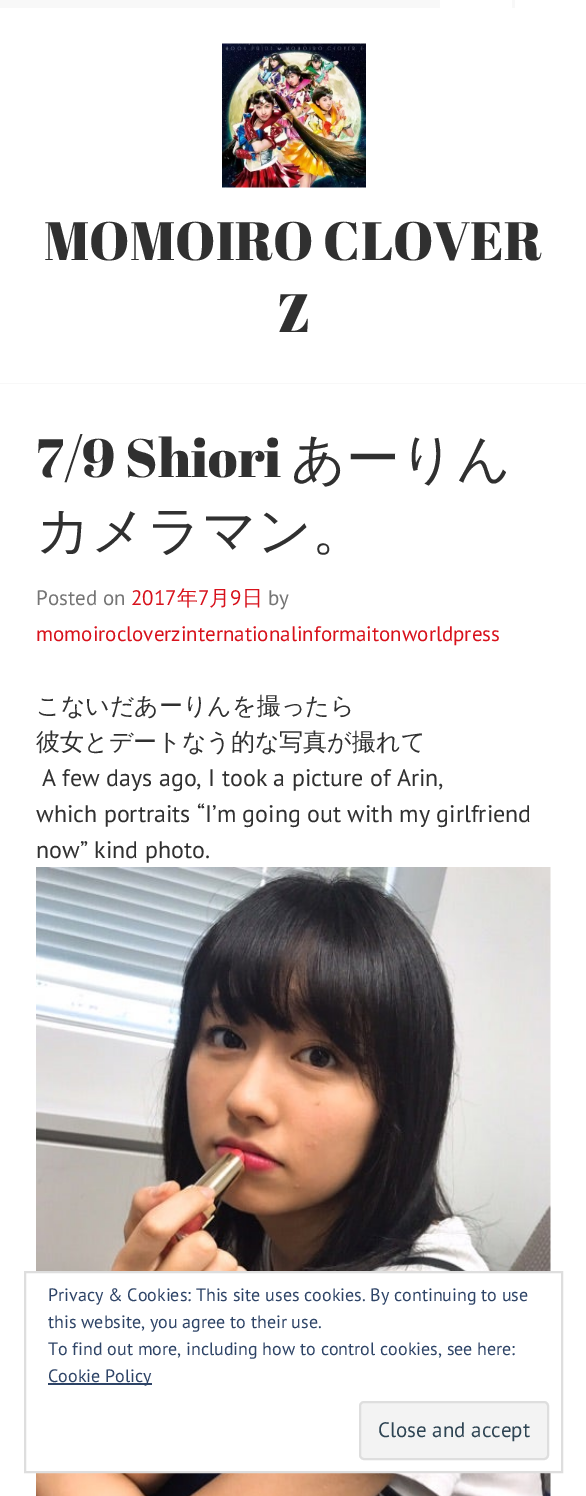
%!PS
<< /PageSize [586 1496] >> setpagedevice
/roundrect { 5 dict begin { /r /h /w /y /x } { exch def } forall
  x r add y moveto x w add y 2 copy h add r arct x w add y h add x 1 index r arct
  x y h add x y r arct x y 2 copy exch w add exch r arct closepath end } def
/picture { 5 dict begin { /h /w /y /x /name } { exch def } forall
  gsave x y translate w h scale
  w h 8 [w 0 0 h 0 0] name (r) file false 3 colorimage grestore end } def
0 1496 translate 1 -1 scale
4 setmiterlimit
1 setgray
0 0 586 1496 rectfill
0.973 setgray
0 383 586 1 rectfill
0 0 515 8 rectfill
1 setgray
440 0 72 8 rectfill
(img1.rgb) 222 43 144 145 picture
/AbrilFatface-Regular [54 0 0 -54 0 0] selectfont
0.188 setgray
44 260 moveto (MOMOIRO CLOVER) show
277 332 moveto (Z) show
36 477 moveto (7/9 Shiori) show
/WenQuanYiZenHei-Medium [54 0 0 -54 0 0] selectfont
291 477 moveto (あーりん) show
36 549 moveto (カメラマン。) show
/PTSans-Regular [21 0 0 -21 0 0] selectfont
0.459 setgray
36 605 moveto (Posted on) show
0.847 0.067 0.106 setrgbcolor
131 605 moveto (2017) show
/WenQuanYiZenHei-Medium [21 0 0 -21 0 0] selectfont
177 605 moveto (年) show
/PTSans-Regular [21 0 0 -21 0 0] selectfont
198 605 moveto (7) show
/WenQuanYiZenHei-Medium [21 0 0 -21 0 0] selectfont
209 605 moveto (月) show
/PTSans-Regular [21 0 0 -21 0 0] selectfont
230 605 moveto (9) show
/WenQuanYiZenHei-Medium [21 0 0 -21 0 0] selectfont
242 605 moveto (日) show
/PTSans-Regular [21 0 0 -21 0 0] selectfont
0.459 setgray
268 605 moveto (by) show
0.847 0.067 0.106 setrgbcolor
36 641 moveto (momoirocloverzinternationalinformaitonworldpress) show
/WenQuanYiZenHei-Medium [24 0 0 -24 0 0] selectfont
0.188 setgray
36 714 moveto (こないだあーりんを撮ったら) show
36 750 moveto (彼女とデートなう的な写真が撮れて) show
/PTSans-Regular [24 0 0 -24 0 0] selectfont
42 786 moveto (A few days ago, I took a picture of Arin,) show
36 822 moveto (which portraits “I’m going out with my girlfriend) show
36 858 moveto (now” kind photo.) show
(img2.rgb) 36 867 515 629 picture
1 setgray
36 1273 515 198 rectfill
0.871 setgray
2 setlinewidth
25 1272 537 200 rectstroke
/PTSans-Regular [18 0 0 -18 0 0] selectfont
0.18 0.267 0.404 setrgbcolor
48 1301 moveto (Privacy & Cookies: This site uses cookies. By continuing to use) show
48 1328 moveto (this website, you agree to their use.) show
48 1355 moveto (To find out more, including how to control cookies, see here:) show
48 1383 104 2 rectfill
48 1382 moveto (Cookie Policy) show
0.953 setgray
360 1402 188 57 4 roundrect gsave fill grestore
0.871 setgray
stroke
/PTSans-Regular [21 0 0 -21 0 0] selectfont
0.18 0.267 0.325 setrgbcolor
378 1437 moveto (Close and accept) show
showpage
